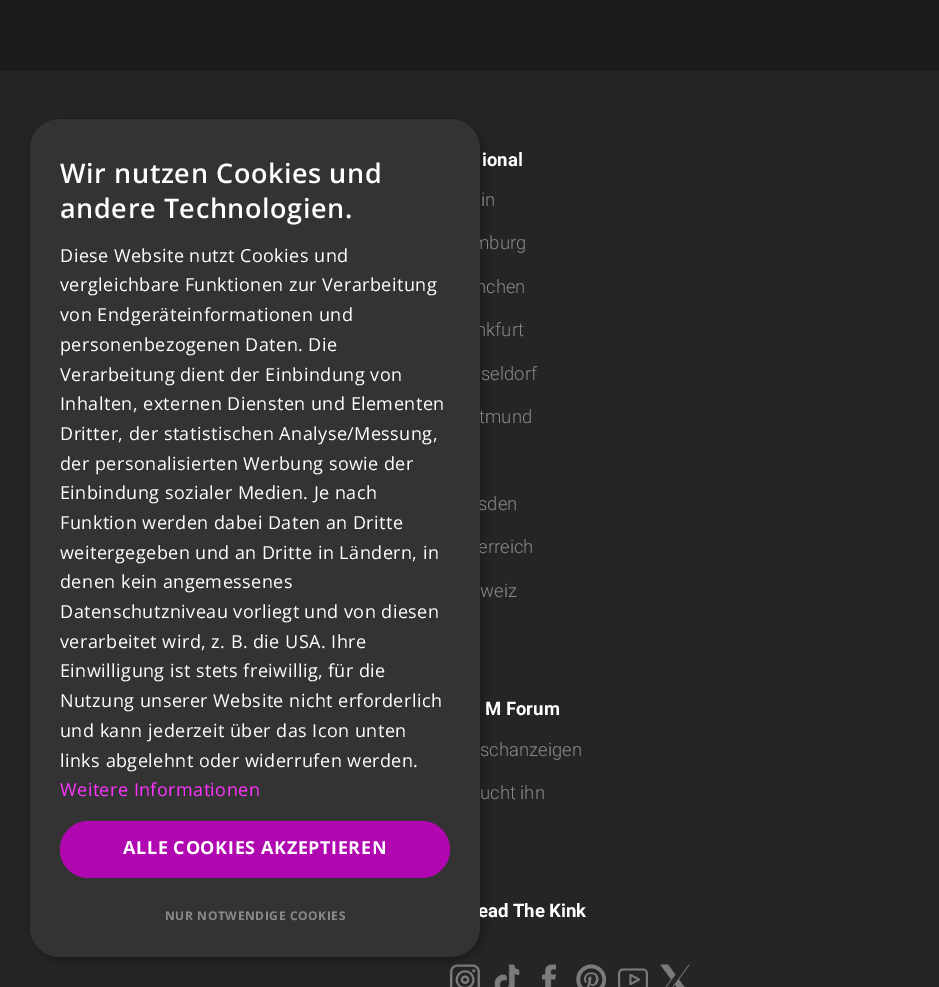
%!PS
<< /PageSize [939 987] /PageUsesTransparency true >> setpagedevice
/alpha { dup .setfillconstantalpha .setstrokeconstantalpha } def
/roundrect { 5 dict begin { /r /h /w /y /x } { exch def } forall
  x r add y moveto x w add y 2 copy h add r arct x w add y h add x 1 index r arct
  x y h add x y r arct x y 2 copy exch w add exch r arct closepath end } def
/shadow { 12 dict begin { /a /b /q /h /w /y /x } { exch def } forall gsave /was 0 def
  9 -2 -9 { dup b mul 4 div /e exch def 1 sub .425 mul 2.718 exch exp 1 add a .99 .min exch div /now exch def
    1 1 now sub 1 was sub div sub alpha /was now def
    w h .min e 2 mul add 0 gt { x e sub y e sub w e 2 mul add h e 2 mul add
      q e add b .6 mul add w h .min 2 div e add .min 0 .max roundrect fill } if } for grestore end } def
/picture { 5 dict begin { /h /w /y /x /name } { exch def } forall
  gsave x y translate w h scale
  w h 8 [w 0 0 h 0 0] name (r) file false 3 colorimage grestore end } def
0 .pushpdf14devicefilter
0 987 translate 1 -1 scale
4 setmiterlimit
0.11 setgray
0 0 939 987 rectfill
0.145 setgray
0 71 939 916 rectfill
(img1.rgb) 450 964 30 23 picture
(img2.rgb) 494 964 26 23 picture
0 setgray
32 122 450 838 30 6 0.35 shadow
/Roboto-Light [18.5 0 0 -18.5 0 0] selectfont
0.537 setgray
473 249 moveto (mburg) show
476 293 moveto (nchen) show
476 336 moveto (nkfurt) show
479 423 moveto (tmund) show
478 510 moveto (sden) show
478 553 moveto (erreich) show
/Roboto-Bold [18.5 0 0 -18.5 0 0] selectfont
1 setgray
478 917 moveto (ead The Kink) show
0.2 setgray
30 119 450 838 30 roundrect fill
/OpenSans-SemiBold [27 0 0 -27 0 0] selectfont
1 setgray
60 183 moveto 0.6 0 (Wir nutzen Cookies und) ashow
60 218 moveto 0.6 0 (andere Technologien.) ashow
/OpenSans-Regular [18 0 0 -18 0 0] selectfont
60 262 moveto 0.45 0 (Diese Website nutzt Cookies und) ashow
60 291 moveto 0.45 0 (vergleichbare Funktionen zur Verarbeitung) ashow
60 321 moveto 0.45 0 (von Endgeräteinformationen und) ashow
60 351 moveto 0.45 0 (personenbezogenen Daten. Die) ashow
60 381 moveto 0.45 0 (Verarbeitung dient der Einbindung von) ashow
60 410 moveto 0.45 0 (Inhalten, externen Diensten und Elementen) ashow
60 440 moveto 0.45 0 (Dritter, der statistischen Analyse/Messung,) ashow
60 470 moveto 0.45 0 (der personalisierten Werbung sowie der) ashow
60 499 moveto 0.45 0 (Einbindung sozialer Medien. Je nach) ashow
60 529 moveto 0.45 0 (Funktion werden dabei Daten an Dritte) ashow
60 559 moveto 0.45 0 (weitergegeben und an Dritte in Ländern, in) ashow
60 588 moveto 0.45 0 (denen kein angemessenes) ashow
60 618 moveto 0.45 0 (Datenschutzniveau vorliegt und von diesen) ashow
60 648 moveto 0.45 0 (verarbeitet wird, z. B. die USA. Ihre) ashow
60 677 moveto 0.45 0 (Einwilligung ist stets freiwillig, für die) ashow
60 707 moveto 0.45 0 (Nutzung unserer Website nicht erforderlich) ashow
60 737 moveto 0.45 0 (und kann jederzeit über das Icon unten) ashow
60 767 moveto 0.45 0 (links abgelehnt oder widerrufen werden.) ashow
1 0.2 1 setrgbcolor
60 796 moveto 0.45 0 (Weitere Informationen) ashow
0.694 0.027 0.694 setrgbcolor
60 821 390 57 28.5 roundrect fill
/OpenSans-Bold [18 0 0 -18 0 0] selectfont
1 setgray
123 854 moveto 0.6 0 (ALLE COOKIES AKZEPTIEREN) ashow
/OpenSans-Bold [12 0 0 -12 0 0] selectfont
0.537 setgray
165 920 moveto 0.6 0 (NUR NOTWENDIGE COOKIES) ashow
/Roboto-Bold [18.5 0 0 -18.5 0 0] selectfont
1 setgray
482 166 moveto (ional) show
/Roboto-Light [18.5 0 0 -18.5 0 0] selectfont
0.537 setgray
481 206 moveto (in) show
481 380 moveto (seldorf) show
480 597 moveto (weiz) show
/Roboto-Bold [18.5 0 0 -18.5 0 0] selectfont
1 setgray
485 715 moveto (M Forum) show
/Roboto-Light [18.5 0 0 -18.5 0 0] selectfont
0.537 setgray
480 756 moveto (schanzeigen) show
480 799 moveto (ucht ihn) show
(img3.rgb) 542 964 14 23 picture
(img4.rgb) 576 964 30 23 picture
(img5.rgb) 618 968 30 19 picture
(img6.rgb) 660 964 30 23 picture
.poppdf14devicefilter showpage
